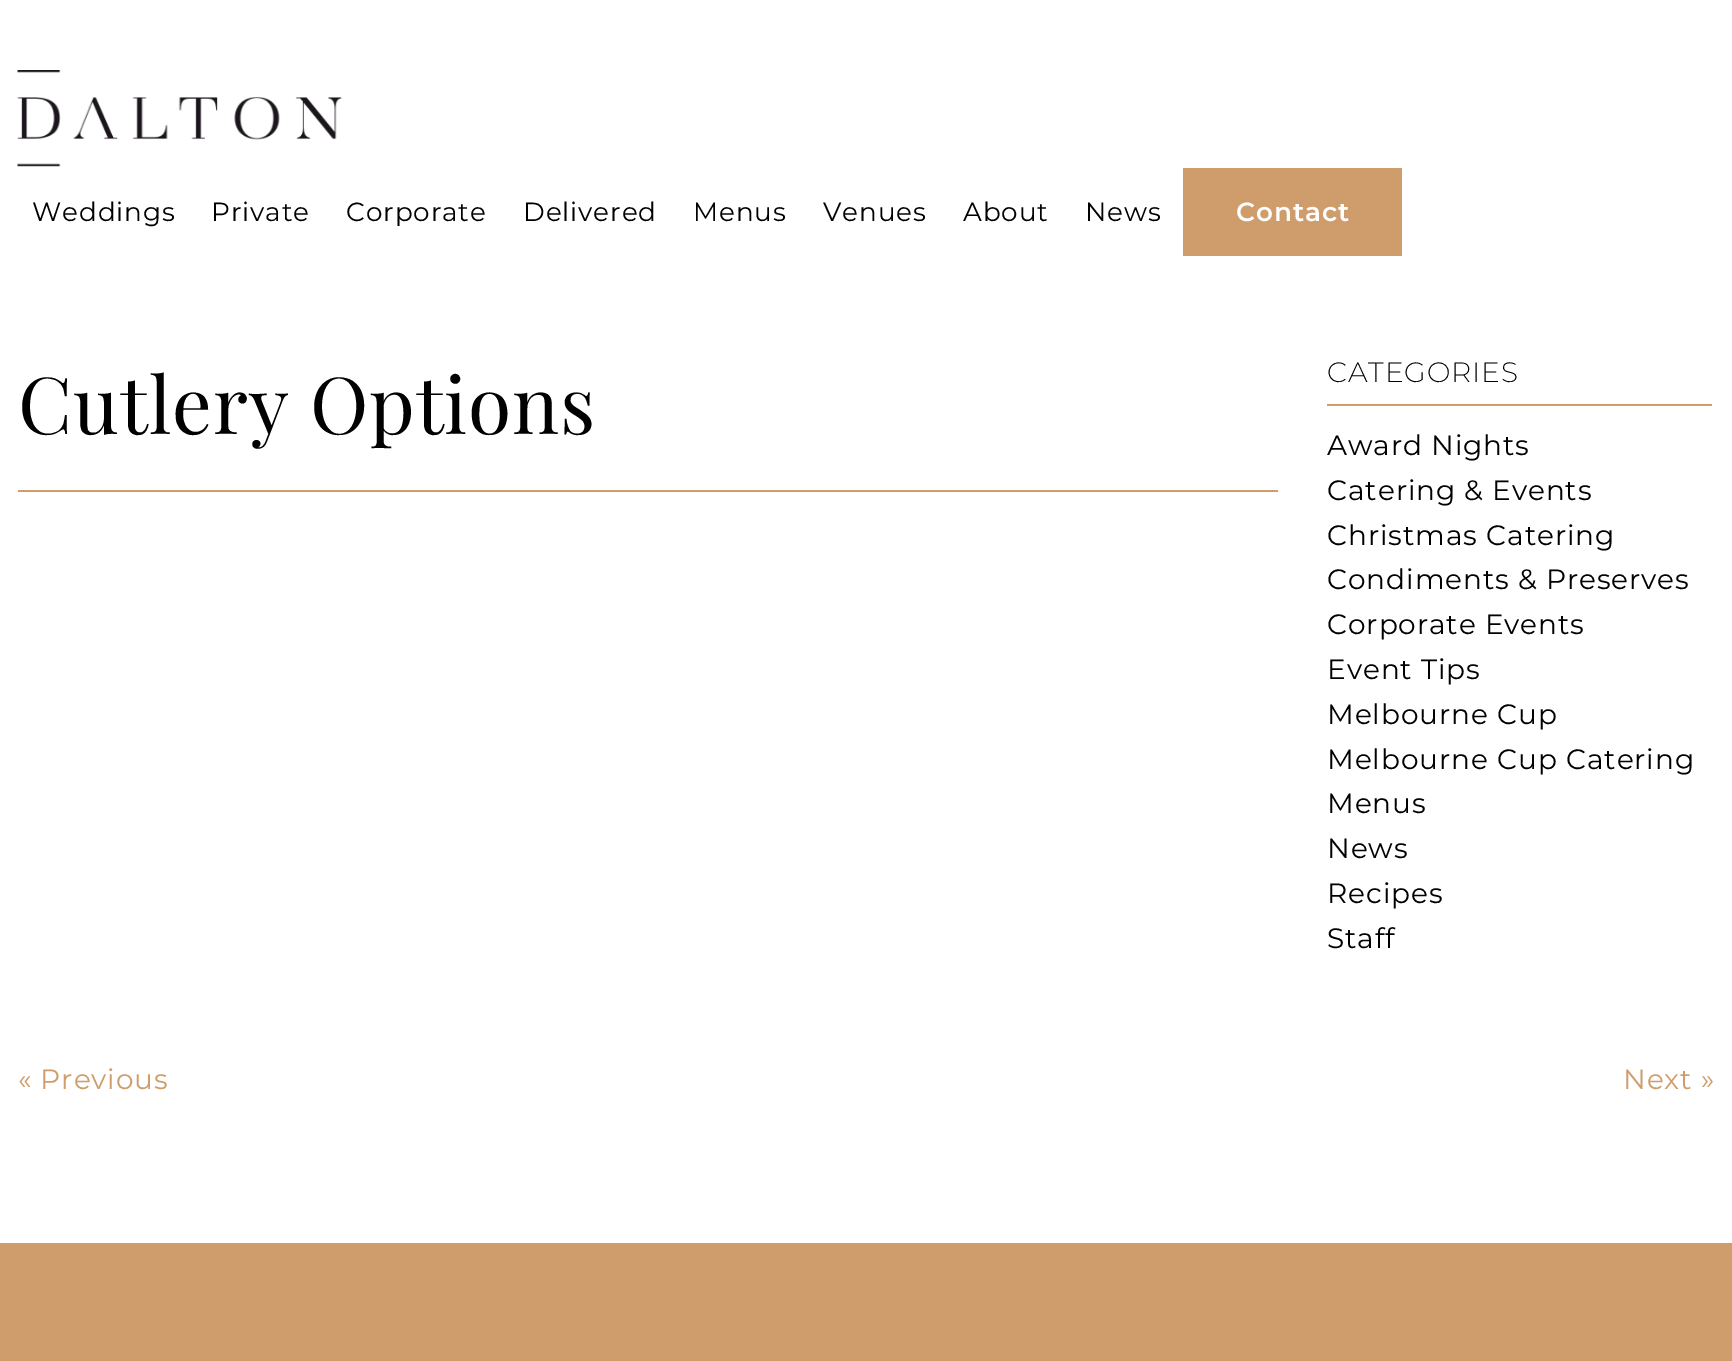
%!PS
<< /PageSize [1732 1361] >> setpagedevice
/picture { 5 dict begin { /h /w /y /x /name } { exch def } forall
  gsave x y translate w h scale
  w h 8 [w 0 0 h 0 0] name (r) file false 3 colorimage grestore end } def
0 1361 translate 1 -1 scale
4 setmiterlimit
1 setgray
0 0 1732 1361 rectfill
(img1.rgb) 17 70 325 97 picture
/Montserrat-Regular [26.25 0 0 -26.25 0 0] selectfont
0 setgray
32 221 moveto 0.9 0 (Weddings) ashow
211 221 moveto 0.9 0 (Private) ashow
346 221 moveto 0.9 0 (Corporate) ashow
523 221 moveto 0.9 0 (Delivered) ashow
693 221 moveto 0.9 0 (Menus) ashow
823 221 moveto 0.9 0 (Venues) ashow
963 221 moveto 0.9 0 (About) ashow
1085 221 moveto 0.9 0 (News) ashow
0.808 0.616 0.42 setrgbcolor
1183 168 219 88 rectfill
/Montserrat-SemiBold [26.25 0 0 -26.25 0 0] selectfont
1 setgray
1236 221 moveto 0.9 0 (Contact) ashow
0.808 0.616 0.42 setrgbcolor
18 490 1260 2 rectfill
/PlayfairDisplay-Regular [78.75 0 0 -78.75 0 0] selectfont
0 setgray
18 434 moveto 0.9 0 (Cutlery Options) ashow
0.808 0.616 0.42 setrgbcolor
1327 404 385 2 rectfill
/Montserrat-ExtraLight [28 0 0 -28 0 0] selectfont
0 setgray
1327 382 moveto 0.9 0 (CATEGORIES) ashow
/Montserrat-Regular [28 0 0 -28 0 0] selectfont
1327 455 moveto 0.9 0 (Award Nights) ashow
1327 500 moveto 0.9 0 (Catering & Events) ashow
1327 545 moveto 0.9 0 (Christmas Catering) ashow
1327 589 moveto 0.9 0 (Condiments & Preserves) ashow
1327 634 moveto 0.9 0 (Corporate Events) ashow
1327 679 moveto 0.9 0 (Event Tips) ashow
1327 724 moveto 0.9 0 (Melbourne Cup) ashow
1327 769 moveto 0.9 0 (Melbourne Cup Catering) ashow
1327 813 moveto 0.9 0 (Menus) ashow
1327 858 moveto 0.9 0 (News) ashow
1327 903 moveto 0.9 0 (Recipes) ashow
1327 948 moveto 0.9 0 (Staff) ashow
0.808 0.616 0.42 setrgbcolor
18 1089 moveto 0.9 0 (« Previous) ashow
1623 1089 moveto 0.9 0 (Next ») ashow
0 1243 1732 118 rectfill
showpage
